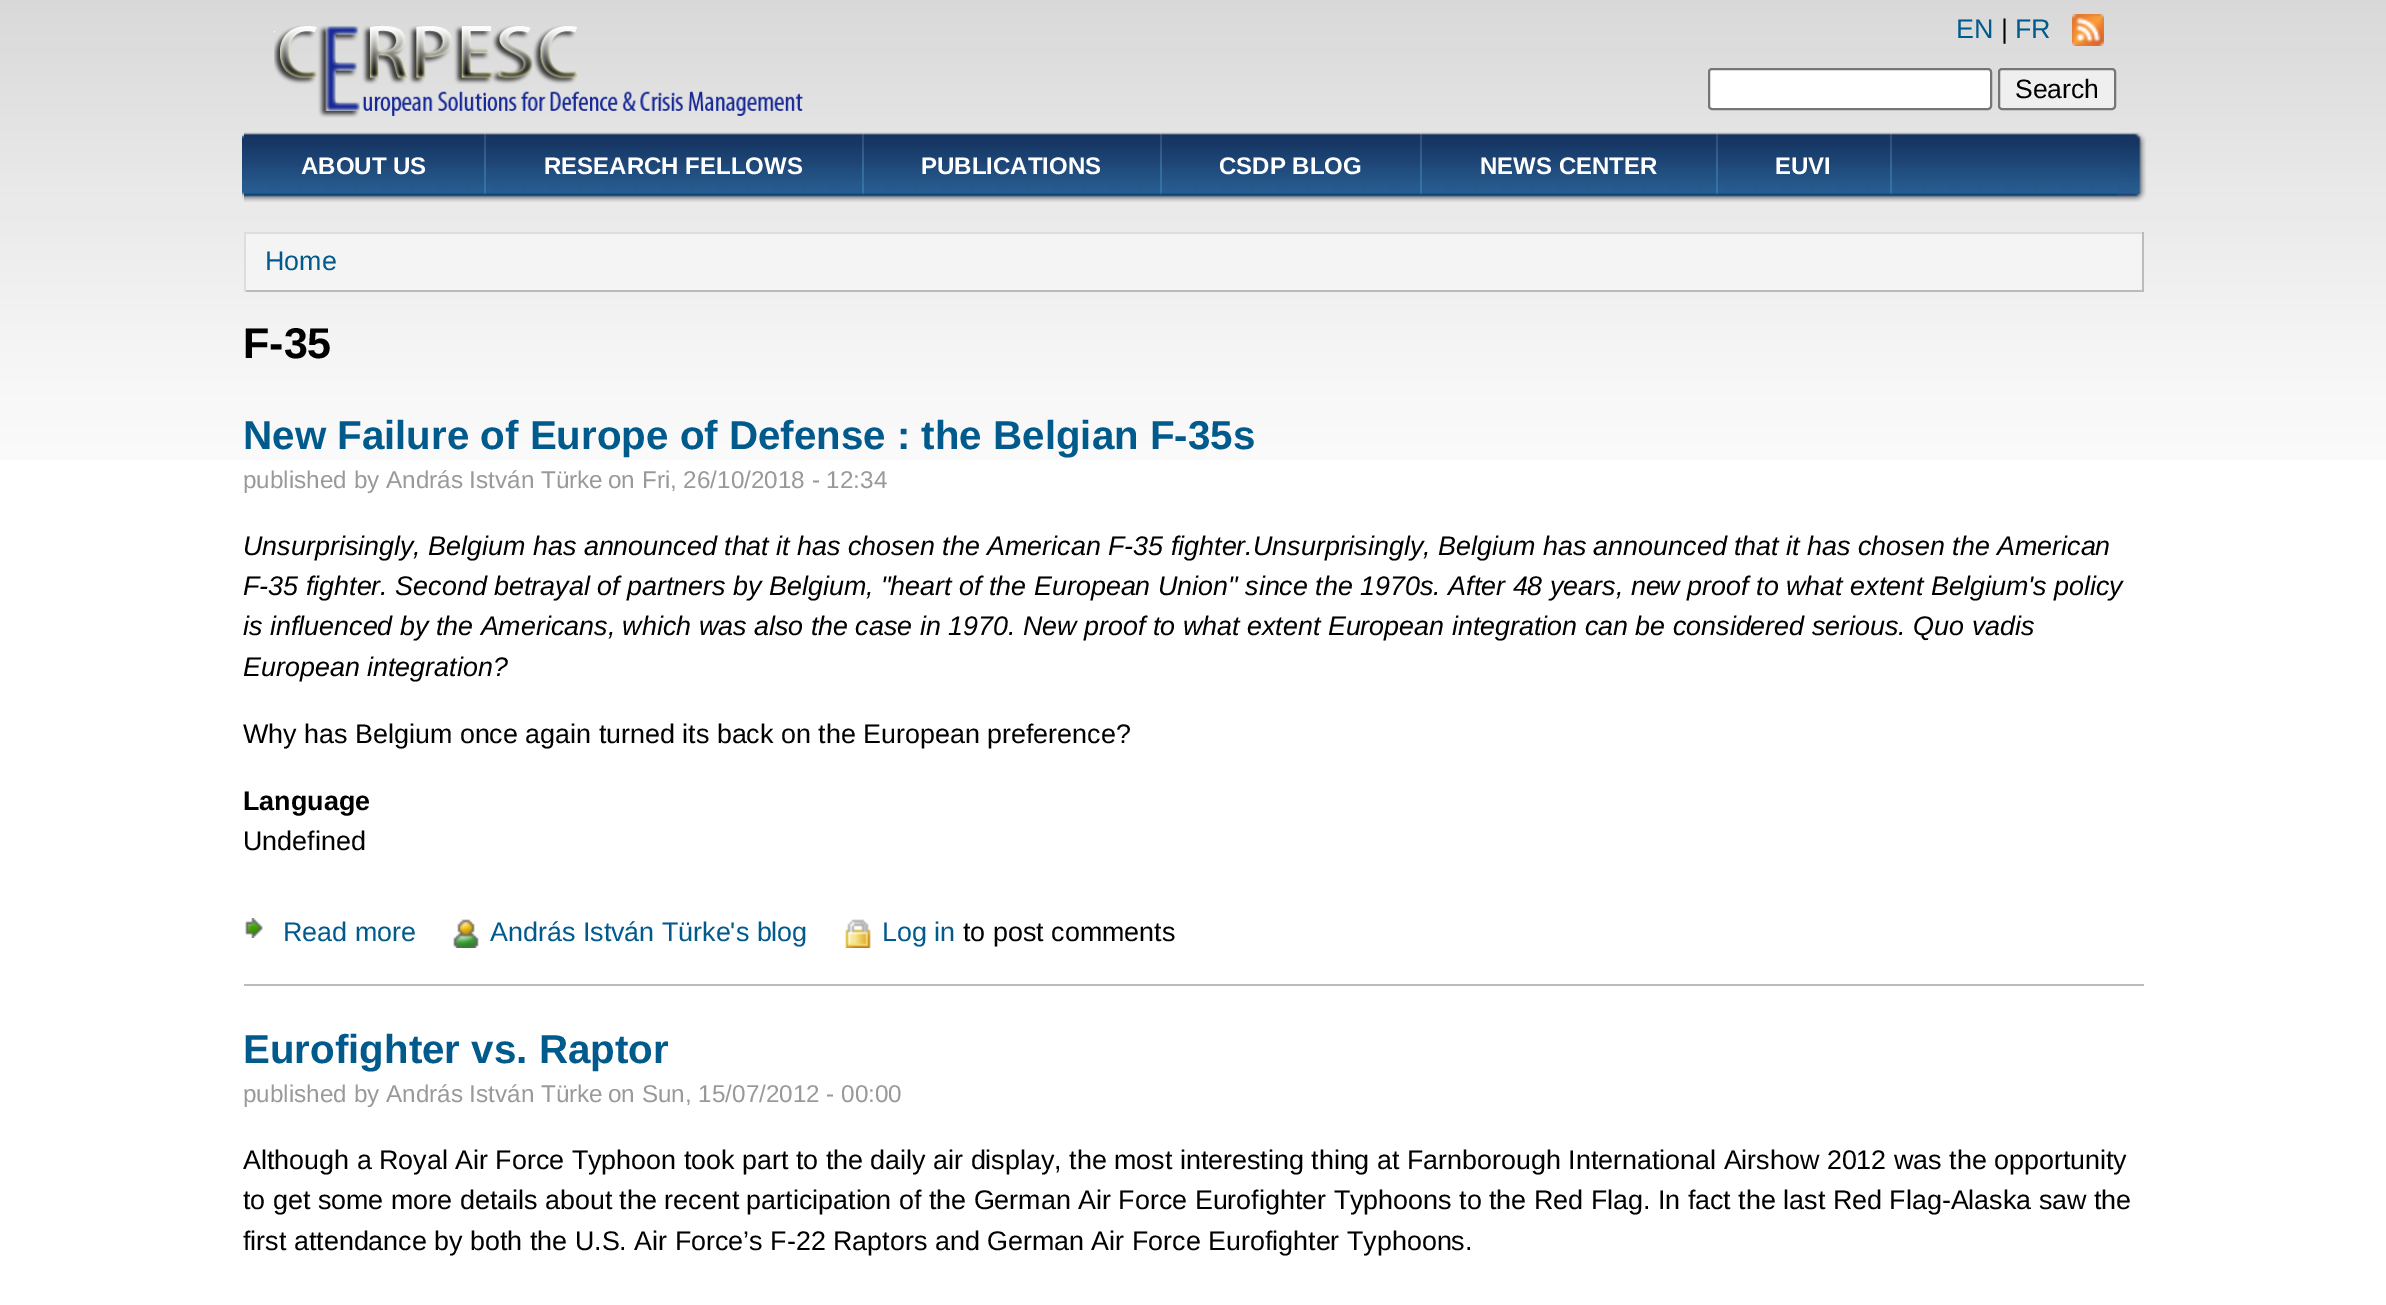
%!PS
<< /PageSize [2386 1305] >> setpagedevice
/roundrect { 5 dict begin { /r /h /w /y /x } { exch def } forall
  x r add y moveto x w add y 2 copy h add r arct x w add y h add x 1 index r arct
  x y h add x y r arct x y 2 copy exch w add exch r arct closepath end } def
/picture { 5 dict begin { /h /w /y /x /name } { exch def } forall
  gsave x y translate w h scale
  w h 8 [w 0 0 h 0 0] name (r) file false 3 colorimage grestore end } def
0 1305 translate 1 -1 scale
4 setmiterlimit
1 setgray
0 0 2386 1305 rectfill
(img1.rgb) 0 0 2386 460 picture
(img2.rgb) 274 25 529 93 picture
/LiberationSans-Regular [26.88 0 0 -26.88 0 0] selectfont
0 0.353 0.549 setrgbcolor
1956 38 moveto (EN) show
0 setgray
2001 38 moveto (|) show
0 0.353 0.549 setrgbcolor
2015 38 moveto (FR) show
(img3.rgb) 2072 14 32 32 picture
1 setgray
1709 69 282 40 3 roundrect gsave fill grestore
0.463 setgray
2 setlinewidth
stroke
0.937 setgray
1999 69 116 40 3 roundrect gsave fill grestore
0.463 setgray
stroke
/LiberationSans-Regular [26.5 0 0 -26.5 0 0] selectfont
0 setgray
2015 98 moveto (Search) show
(img4.rgb) 244 132 1874 70 picture
(img5.rgb) 242 132 2 70 picture
(img6.rgb) 484 133 2 64 picture
/LiberationSans-Bold [24 0 0 -24 0 0] selectfont
1 setgray
301 174 moveto (ABOUT US) show
(img6.rgb) 862 133 2 64 picture
544 174 moveto (RESEARCH FELLOWS) show
(img6.rgb) 1160 133 2 64 picture
921 174 moveto (PUBLICATIONS) show
(img6.rgb) 1420 133 2 64 picture
1219 174 moveto (CSDP BLOG) show
(img6.rgb) 1716 133 2 64 picture
1480 174 moveto (NEWS CENTER) show
(img6.rgb) 1890 133 2 64 picture
1775 174 moveto (EUVI) show
(img7.rgb) 2118 132 28 70 picture
0.957 setgray
246 234 1896 56 rectfill
0.867 setgray
244 232 1900 2 rectfill
0.733 setgray
2142 232 2 60 rectfill
244 290 1900 2 rectfill
0.867 setgray
244 232 2 60 rectfill
/LiberationSans-Regular [26.88 0 0 -26.88 0 0] selectfont
0 0.353 0.549 setrgbcolor
265 270 moveto (Home) show
/LiberationSans-Bold [43 0 0 -43 0 0] selectfont
0 setgray
243 358 moveto (F-35) show
0.733 setgray
244 984 1900 2 rectfill
/LiberationSans-Bold [40.3 0 0 -40.3 0 0] selectfont
0 0.353 0.549 setrgbcolor
243 449 moveto (New Failure of Europe of Defense : the Belgian F-35s) show
/LiberationSans-Regular [24.25 0 0 -24.25 0 0] selectfont
0.6 setgray
243 488 moveto (published by András István Türke) show
608 488 moveto (on Fri, 26/10/2018 - 12:34) show
/LiberationSans-Italic [26.88 0 0 -26.88 0 0] selectfont
0 setgray
243 555 moveto (Unsurprisingly, Belgium has announced that it has chosen the American F-35 fighter.Unsurprisingly, Belgium has announced that it has chosen the American) show
243 595 moveto (F-35 fighter. Second betrayal of partners by Belgium, "heart of the European Union" since the 1970s. After 48 years, new proof to what extent Belgium's policy) show
243 635 moveto (is influenced by the Americans, which was also the case in 1970. New proof to what extent European integration can be considered serious. Quo vadis) show
243 676 moveto (European integration?) show
/LiberationSans-Regular [26.88 0 0 -26.88 0 0] selectfont
243 743 moveto (Why has Belgium once again turned its back on the European preference?) show
/LiberationSans-Bold [26.88 0 0 -26.88 0 0] selectfont
243 810 moveto (Language) show
/LiberationSans-Regular [26.88 0 0 -26.88 0 0] selectfont
243 850 moveto (Undefined) show
(img8.rgb) 245 918 18 20 picture
0 0.353 0.549 setrgbcolor
283 941 moveto (Read more) show
(img9.rgb) 453 919 26 29 picture
490 941 moveto (András István Türke's blog) show
(img10.rgb) 845 919 26 29 picture
882 941 moveto (Log in) show
0 setgray
963 941 moveto (to post comments) show
/LiberationSans-Bold [40.3 0 0 -40.3 0 0] selectfont
0 0.353 0.549 setrgbcolor
243 1063 moveto (Eurofighter vs. Raptor) show
/LiberationSans-Regular [24.25 0 0 -24.25 0 0] selectfont
0.6 setgray
243 1102 moveto (published by András István Türke) show
608 1102 moveto (on Sun, 15/07/2012 - 00:00) show
/LiberationSans-Regular [26.88 0 0 -26.88 0 0] selectfont
0 setgray
243 1169 moveto (Although a Royal Air Force Typhoon took part to the daily air display, the most interesting thing at Farnborough International Airshow 2012 was the opportunity) show
243 1209 moveto (to get some more details about the recent participation of the German Air Force Eurofighter Typhoons to the Red Flag. In fact the last Red Flag-Alaska saw the) show
243 1250 moveto (first attendance by both the U.S. Air Force’s F-22 Raptors and German Air Force Eurofighter Typhoons.) show
showpage
